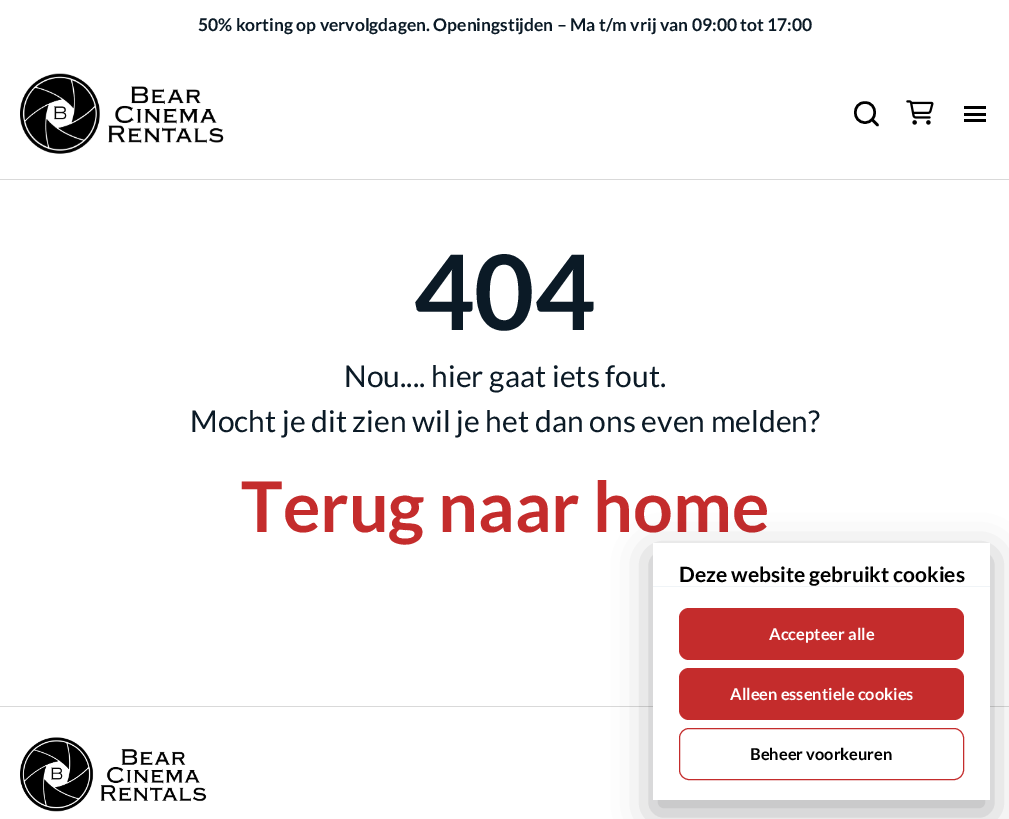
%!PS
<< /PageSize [1009 819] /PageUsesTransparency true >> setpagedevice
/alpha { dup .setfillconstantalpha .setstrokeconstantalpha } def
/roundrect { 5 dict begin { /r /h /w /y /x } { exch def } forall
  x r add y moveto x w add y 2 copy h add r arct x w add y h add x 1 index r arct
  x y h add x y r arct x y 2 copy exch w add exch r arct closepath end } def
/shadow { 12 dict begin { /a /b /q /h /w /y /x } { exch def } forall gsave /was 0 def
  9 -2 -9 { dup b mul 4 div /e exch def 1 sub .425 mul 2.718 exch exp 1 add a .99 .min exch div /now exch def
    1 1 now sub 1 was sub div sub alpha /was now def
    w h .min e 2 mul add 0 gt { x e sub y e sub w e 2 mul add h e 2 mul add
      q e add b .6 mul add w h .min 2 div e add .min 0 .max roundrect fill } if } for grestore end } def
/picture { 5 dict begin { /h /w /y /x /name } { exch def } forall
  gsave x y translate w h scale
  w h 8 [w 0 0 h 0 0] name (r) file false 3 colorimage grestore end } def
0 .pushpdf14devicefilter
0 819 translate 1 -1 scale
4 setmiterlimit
1 setgray
0 0 1009 819 rectfill
/Lato-Bold [17.5 0 0 -17.5 0 0] selectfont
0.043 0.102 0.149 setrgbcolor
198 31 moveto (50% korting op vervolgdagen. Openingstijden – Ma t/m vrij van 09:00 tot 17:00) show
0.851 setgray
0 179 1009 1 rectfill
(img1.rgb) 20 73 204 81 picture
0 setgray
2.5 setlinewidth
1 setlinecap
1 setlinejoin
newpath 865 122.5 moveto 878 122.5 878 102.5 865 102.5 curveto 852 102.5 852 122.5 865 122.5 curveto closepath 877.5 125 moveto 872 119.5 lineto stroke
(img2.rgb) 906 100 28 25 picture
964 106 22 3 rectfill
964 113 22 3 rectfill
964 119 22 3 rectfill
/Lato-Bold [104 0 0 -104 0 0] selectfont
0.043 0.102 0.149 setrgbcolor
414 330 moveto (404) show
/Lato-Regular [30 0 0 -30 0 0] selectfont
344 387 moveto (Nou.... hier gaat iets fout.) show
190 432 moveto (Mocht je dit zien wil je het dan ons even melden?) show
/Lato-Bold [70 0 0 -70 0 0] selectfont
0.769 0.173 0.173 setrgbcolor
241 532 moveto (Terug naar home) show
0.851 setgray
0 706 1009 1 rectfill
0 0 0.008 setrgbcolor
653 555 337 258 0 19 0.3 shadow
1 setgray
653 543 337 257 rectfill
/Lato-Bold [21 0 0 -21 0 0] selectfont
0 setgray
679 582 moveto (Deze website gebruikt cookies) show
0.941 0.957 0.969 setrgbcolor
653 586 337 1 rectfill
0.769 0.173 0.173 setrgbcolor
679 608 285 52 10 roundrect fill
/Lato-Bold [16.4 0 0 -16.4 0 0] selectfont
1 setgray
769 640 moveto (Accepteer alle) show
0.769 0.173 0.173 setrgbcolor
679 668 285 52 10 roundrect fill
1 setgray
730 700 moveto (Alleen essentiele cookies) show
0.769 0.173 0.173 setrgbcolor
1 setlinewidth
0 setlinecap
0 setlinejoin
679.5 728.5 284 51 9.5 roundrect stroke
0 setgray
750 760 moveto (Beheer voorkeuren) show
(img3.rgb) 20 737 187 75 picture
.poppdf14devicefilter showpage
